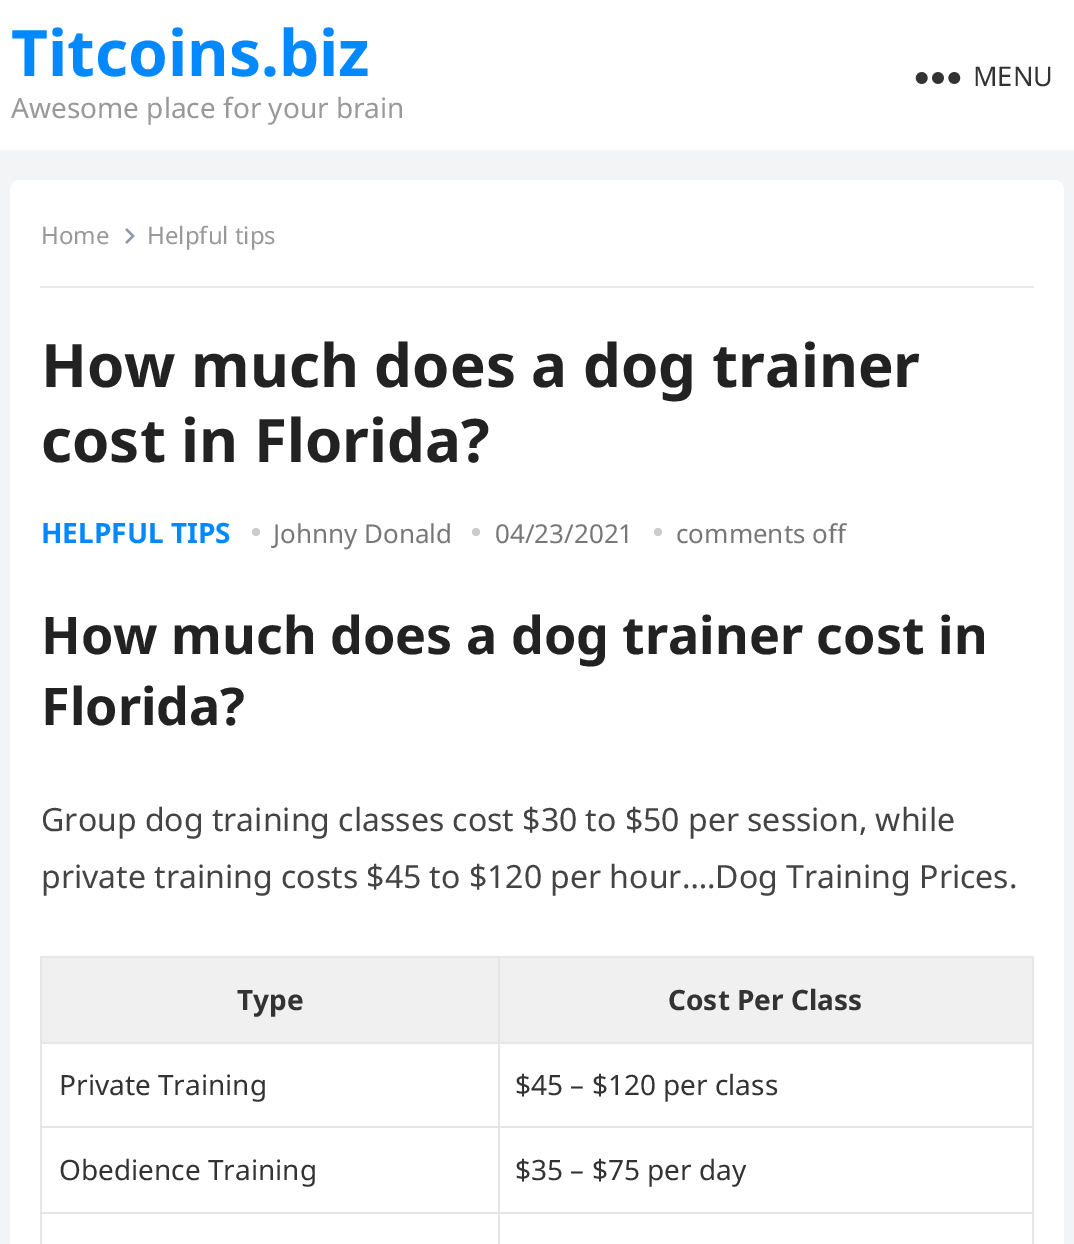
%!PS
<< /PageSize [1074 1244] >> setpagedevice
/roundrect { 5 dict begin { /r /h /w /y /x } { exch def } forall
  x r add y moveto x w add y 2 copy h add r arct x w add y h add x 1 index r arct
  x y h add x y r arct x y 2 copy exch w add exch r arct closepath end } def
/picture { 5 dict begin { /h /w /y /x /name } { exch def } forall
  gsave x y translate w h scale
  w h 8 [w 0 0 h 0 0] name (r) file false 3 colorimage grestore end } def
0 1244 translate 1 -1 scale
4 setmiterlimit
0.953 0.957 0.961 setrgbcolor
0 0 1074 1244 rectfill
1 setgray
0 0 1074 150 rectfill
/NotoSans-Bold [64 0 0 -64 0 0] selectfont
0.012 0.537 1 setrgbcolor
11 76 moveto (Titcoins.biz) show
/NotoSans-Regular [28 0 0 -28 0 0] selectfont
0.6 setgray
11 118 moveto (Awesome place for your brain) show
(img1.rgb) 915 72 46 12 picture
/NotoSans-Regular [27 0 0 -27 0 0] selectfont
0.2 setgray
973 86 moveto (MENU) show
1 setgray
10 180 1054 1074 10 roundrect fill
0.914 setgray
40 286 994 2 rectfill
/NotoSans-Regular [24 0 0 -24 0 0] selectfont
0.6 setgray
41 244 moveto (Home) show
(img2.rgb) 125 228 10 16 picture
147 244 moveto (Helpful tips) show
/NotoSans-Bold [60 0 0 -60 0 0] selectfont
0.133 setgray
41 387 moveto (How much does a dog trainer) show
41 462 moveto (cost in Florida?) show
/NotoSans-Bold [28 0 0 -28 0 0] selectfont
0.012 0.537 1 setrgbcolor
41 543 moveto (HELPFUL TIPS) show
0.8 setgray
newpath 256 532 4 0 360 arc closepath fill
/NotoSans-Regular [26 0 0 -26 0 0] selectfont
0.467 setgray
273 543 moveto (Johnny Donald) show
0.8 setgray
newpath 476 532 4 0 360 arc closepath fill
0.467 setgray
495 543 moveto (04/23/2021) show
0.8 setgray
newpath 658 532 4 0 360 arc closepath fill
0.467 setgray
676 543 moveto (comments off) show
/NotoSans-Bold [52 0 0 -52 0 0] selectfont
0.133 setgray
41 654 moveto (How much does a dog trainer cost in) show
41 725 moveto (Florida?) show
/NotoSans-Regular [32 0 0 -32 0 0] selectfont
0.267 setgray
41 831 moveto (Group dog training classes cost $30 to $50 per session, while) show
41 888 moveto (private training costs $45 to $120 per hour….Dog Training Prices.) show
0.941 setgray
42 958 456 84 rectfill
0.902 setgray
498 956 536 2 rectfill
498 1042 536 2 rectfill
498 1126 536 2 rectfill
498 1212 536 2 rectfill
498 1212 2 32 rectfill
40 1212 460 2 rectfill
498 1126 2 88 rectfill
40 1126 460 2 rectfill
498 1042 2 86 rectfill
40 1042 460 2 rectfill
498 956 2 88 rectfill
40 956 460 2 rectfill
40 1212 2 32 rectfill
40 1126 2 88 rectfill
40 1042 2 86 rectfill
40 956 2 88 rectfill
/NotoSans-Bold [28 0 0 -28 0 0] selectfont
0.2 setgray
237 1010 moveto (Type) show
0.941 setgray
500 958 532 84 rectfill
0.902 setgray
1032 1212 2 32 rectfill
1032 1126 2 88 rectfill
1032 1042 2 86 rectfill
1032 956 2 88 rectfill
0.2 setgray
668 1010 moveto (Cost Per Class) show
/NotoSans-Regular [28 0 0 -28 0 0] selectfont
59 1095 moveto (Private Training) show
515 1095 moveto ($45 – $120 per class) show
59 1180 moveto (Obedience Training) show
515 1180 moveto ($35 – $75 per day) show
showpage
